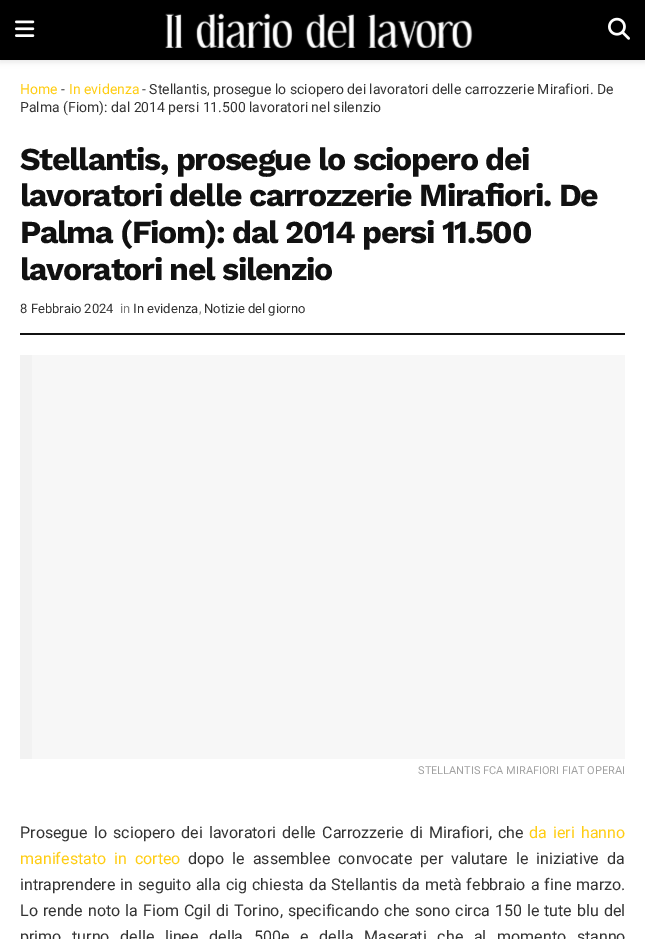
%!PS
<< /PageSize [645 939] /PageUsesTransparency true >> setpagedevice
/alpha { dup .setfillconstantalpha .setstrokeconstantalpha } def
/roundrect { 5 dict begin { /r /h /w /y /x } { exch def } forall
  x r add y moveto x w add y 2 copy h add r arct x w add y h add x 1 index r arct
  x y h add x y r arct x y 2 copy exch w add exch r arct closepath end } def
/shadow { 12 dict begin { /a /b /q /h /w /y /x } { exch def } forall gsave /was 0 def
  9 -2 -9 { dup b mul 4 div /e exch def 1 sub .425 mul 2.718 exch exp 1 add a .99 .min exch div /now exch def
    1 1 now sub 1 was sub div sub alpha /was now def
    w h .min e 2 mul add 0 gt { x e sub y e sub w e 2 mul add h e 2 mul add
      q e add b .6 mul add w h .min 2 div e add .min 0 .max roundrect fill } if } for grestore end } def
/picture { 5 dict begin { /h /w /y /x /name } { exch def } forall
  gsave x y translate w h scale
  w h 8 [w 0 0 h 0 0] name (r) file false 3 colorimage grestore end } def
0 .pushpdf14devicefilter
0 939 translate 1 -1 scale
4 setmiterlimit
1 setgray
0 0 645 939 rectfill
0 setgray
0 2 645 60 0 3 0.1 shadow
0 0 645 60 rectfill
(img1.rgb) 15 20 20 17 picture
(img2.rgb) 165 13 308 35 picture
(img3.rgb) 608 17 22 23 picture
/Roboto-Regular [14 0 0 -14 0 0] selectfont
1 0.804 0.075 setrgbcolor
20 94 moveto (Home) show
0.2 setgray
61 94 moveto (-) show
1 0.804 0.075 setrgbcolor
69 94 moveto (In evidenza) show
0.2 setgray
142 94 moveto (- Stellantis, prosegue lo sciopero dei lavoratori delle carrozzerie Mirafiori. De) show
20 112 moveto (Palma \(Fiom\): dal 2014 persi 11.500 lavoratori nel silenzio) show
0.067 setgray
20 333 605 2 rectfill
/WorkSans-Bold [32 0 0 -32 0 0] selectfont
20 170 moveto -1.3 0 (Stellantis, prosegue lo sciopero dei) ashow
20 206 moveto -1.3 0 (lavoratori delle carrozzerie Mirafiori. De) ashow
20 243 moveto -1.3 0 (Palma \(Fiom\): dal 2014 persi 11.500) ashow
20 280 moveto -1.3 0 (lavoratori nel silenzio) ashow
/Roboto-Regular [13 0 0 -13 0 0] selectfont
0.2 setgray
20 313 moveto (8 Febbraio 2024) show
0.502 setgray
120 313 moveto (in) show
0.2 setgray
133 313 moveto (In evidenza) show
0.502 setgray
199 313 moveto (,) show
0.2 setgray
204 313 moveto (Notizie del giorno) show
0.969 setgray
32 355 593 404 rectfill
0.949 setgray
20 355 12 404 rectfill
/Roboto-Regular [11 0 0 -11 0 0] selectfont
0.627 setgray
418 774 moveto (STELLANTIS FCA MIRAFIORI FIAT OPERAI) show
/Roboto-Regular [16 0 0 -16 0 0] selectfont
0.2 setgray
20 838 moveto 2.25 0 32 (Prosegue lo sciopero dei lavoratori delle Carrozzerie di Mirafiori, che) widthshow
1 0.804 0.075 setrgbcolor
529 838 moveto 2.25 0 32 (da ieri hanno) widthshow
20 864 moveto 4 0 32 (manifestato in corteo) widthshow
0.2 setgray
188 864 moveto 4 0 32 (dopo le assemblee convocate per valutare le iniziative da) widthshow
20 890 moveto 1 0 32 (intraprendere in seguito alla cig chiesta da Stellantis da metà febbraio a fine marzo.) widthshow
20 916 moveto 1 0 32 (Lo rende noto la Fiom Cgil di Torino, specificando che sono circa 150 le tute blu del) widthshow
20 942 moveto 6.75 0 32 (primo turno delle linee della 500e e della Maserati che al momento stanno) widthshow
.poppdf14devicefilter showpage
